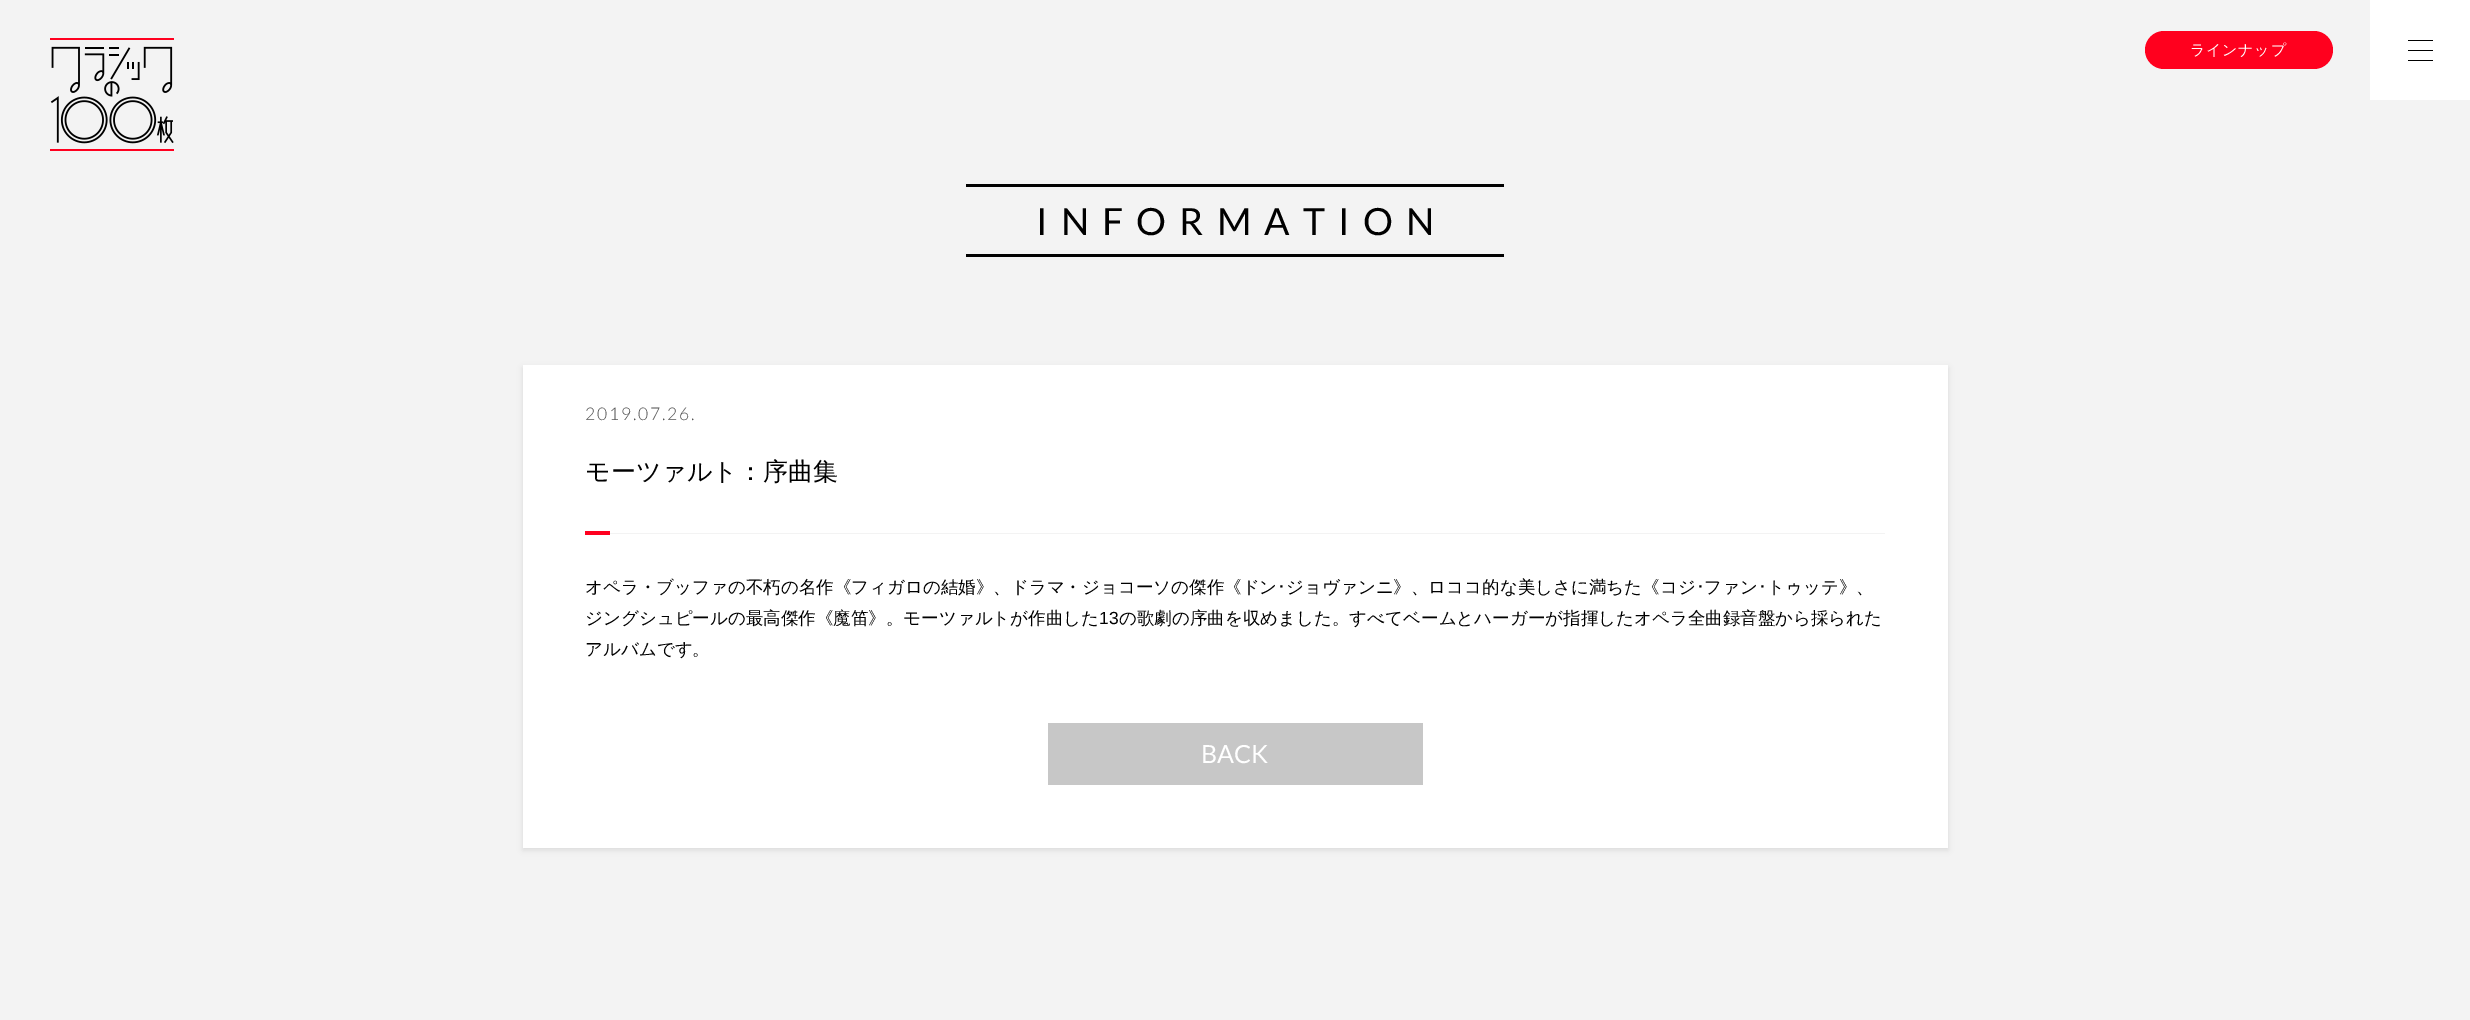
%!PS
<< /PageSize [2470 1020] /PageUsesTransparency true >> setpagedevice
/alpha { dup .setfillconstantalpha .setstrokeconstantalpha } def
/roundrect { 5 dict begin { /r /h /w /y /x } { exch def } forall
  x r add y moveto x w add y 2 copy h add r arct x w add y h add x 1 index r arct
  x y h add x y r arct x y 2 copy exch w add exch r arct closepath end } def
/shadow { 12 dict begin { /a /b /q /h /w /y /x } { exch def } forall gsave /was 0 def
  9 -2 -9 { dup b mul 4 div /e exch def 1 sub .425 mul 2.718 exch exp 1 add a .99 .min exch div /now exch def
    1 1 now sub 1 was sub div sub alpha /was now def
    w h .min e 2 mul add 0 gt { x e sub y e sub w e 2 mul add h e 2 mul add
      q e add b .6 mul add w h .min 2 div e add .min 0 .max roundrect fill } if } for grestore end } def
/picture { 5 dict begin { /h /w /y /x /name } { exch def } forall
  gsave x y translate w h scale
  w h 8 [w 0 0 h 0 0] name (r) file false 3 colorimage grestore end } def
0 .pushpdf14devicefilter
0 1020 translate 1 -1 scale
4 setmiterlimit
0.953 setgray
0 0 2470 1020 rectfill
(img1.rgb) 50 38 124 113 picture
1 0 0.118 setrgbcolor
2145 31 188 38 19 roundrect fill
/WenQuanYiZenHei-Medium [15 0 0 -15 0 0] selectfont
1 setgray
2190 55 moveto 0.75 0 (ラインナップ) ashow
2370 0 100 100 rectfill
0 setgray
2408 40 25 1 rectfill
2408 50 25 1 rectfill
2408 60 25 1 rectfill
966 184 538 3 rectfill
966 254 538 3 rectfill
/Lato-Regular [37.5 0 0 -37.5 0 0] selectfont
1036 235 moveto 13.1 0 (INFORMATION) ashow
523 368 1425 482 0 3 0.1 shadow
1 setgray
523 365 1425 483 rectfill
/Lato-Light [17.5 0 0 -17.5 0 0] selectfont
0.333 setgray
585 420 moveto 1.75 0 (2019.07.26.) ashow
/WenQuanYiZenHei-Medium [25 0 0 -25 0 0] selectfont
0 setgray
585 480 moveto (モーツァルト：序曲集) show
0.953 setgray
610 533 1275 1 rectfill
1 0 0.122 setrgbcolor
585 531 25 4 rectfill
/WenQuanYiZenHei-Medium [17.5 0 0 -17.5 0 0] selectfont
0 setgray
585 593 moveto (オペラ・ブッファの不朽の名作《フィガロの結婚》、ドラマ・ジョコーソの傑作《ドン) show
/IPAPGothic-Regular [17.5 0 0 -17.5 0 0] selectfont
1277 593 moveto (･) show
/WenQuanYiZenHei-Medium [17.5 0 0 -17.5 0 0] selectfont
1286 593 moveto (ジョヴァンニ》、ロココ的な美しさに満ちた《コジ) show
/IPAPGothic-Regular [17.5 0 0 -17.5 0 0] selectfont
1696 593 moveto (･) show
/WenQuanYiZenHei-Medium [17.5 0 0 -17.5 0 0] selectfont
1704 593 moveto (ファン) show
/IPAPGothic-Regular [17.5 0 0 -17.5 0 0] selectfont
1758 593 moveto (･) show
/WenQuanYiZenHei-Medium [17.5 0 0 -17.5 0 0] selectfont
1767 593 moveto (トゥッテ》、) show
585 624 moveto (ジングシュピールの最高傑作《魔笛》。モーツァルトが作曲した) show
/LiberationSans-Regular [17.5 0 0 -17.5 0 0] selectfont
1099 624 moveto (13) show
/WenQuanYiZenHei-Medium [17.5 0 0 -17.5 0 0] selectfont
1119 624 moveto (の歌劇の序曲を収めました。すべてベームとハーガーが指揮したオペラ全曲録音盤から採られた) show
585 655 moveto (アルバムです。) show
0.78 setgray
1048 723 375 62 rectfill
/Lato-Regular [25 0 0 -25 0 0] selectfont
1 setgray
1201 763 moveto (BACK) show
.poppdf14devicefilter showpage
